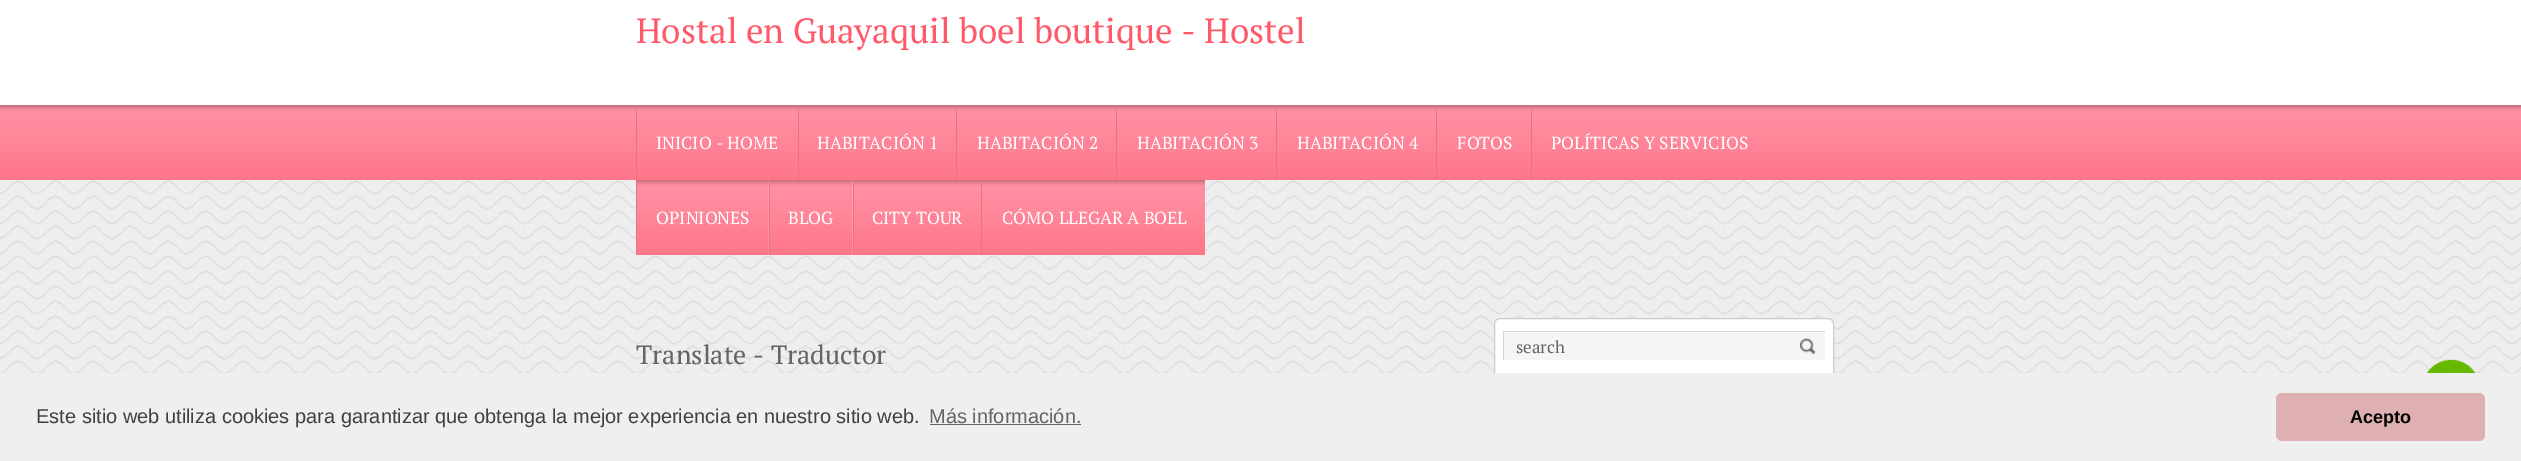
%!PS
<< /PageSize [2521 461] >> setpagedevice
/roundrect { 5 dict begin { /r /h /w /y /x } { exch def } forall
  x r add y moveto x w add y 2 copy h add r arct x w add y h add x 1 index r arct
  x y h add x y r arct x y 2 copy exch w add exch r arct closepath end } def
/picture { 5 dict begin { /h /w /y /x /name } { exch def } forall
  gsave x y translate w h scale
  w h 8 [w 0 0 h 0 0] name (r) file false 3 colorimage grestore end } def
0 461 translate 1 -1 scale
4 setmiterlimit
1 setgray
0 0 2521 461 rectfill
(img1.rgb) 0 180 2521 193 picture
/PTSerif-Regular [35 0 0 -35 0 0] selectfont
1 0.349 0.412 setrgbcolor
636 43 moveto (Hostal en Guayaquil boel boutique - Hostel) show
(img2.rgb) 0 105 2521 75 picture
0.914 0.443 0.518 setrgbcolor
636 105 1 150 rectfill
/PTSerif-Regular [17.5 0 0 -17.5 0 0] selectfont
1 setgray
656 149 moveto (INICIO - HOME) show
0.914 0.443 0.518 setrgbcolor
798 105 1 75 rectfill
1 setgray
817 149 moveto (HABITACIÓN 1) show
0.914 0.443 0.518 setrgbcolor
956 105 1 75 rectfill
1 setgray
977 149 moveto (HABITACIÓN 2) show
0.914 0.443 0.518 setrgbcolor
1116 105 1 75 rectfill
1 setgray
1137 149 moveto (HABITACIÓN 3) show
0.914 0.443 0.518 setrgbcolor
1276 105 1 75 rectfill
1 setgray
1297 149 moveto (HABITACIÓN 4) show
0.914 0.443 0.518 setrgbcolor
1436 105 1 75 rectfill
1 setgray
1457 149 moveto (FOTOS) show
0.914 0.443 0.518 setrgbcolor
1531 105 1 75 rectfill
1 setgray
1551 149 moveto (POLÍTICAS Y SERVICIOS) show
(img3.rgb) 637 180 132 75 picture
656 224 moveto (OPINIONES) show
(img4.rgb) 768 180 85 75 picture
0.914 0.443 0.518 setrgbcolor
769 180 1 75 rectfill
1 setgray
788 224 moveto (BLOG) show
(img5.rgb) 852 180 129 75 picture
0.914 0.443 0.518 setrgbcolor
853 180 1 75 rectfill
1 setgray
872 224 moveto (CITY TOUR) show
(img6.rgb) 982 180 223 75 picture
0.914 0.443 0.518 setrgbcolor
981 180 1 75 rectfill
1 setgray
1002 224 moveto (CÓMO LLEGAR A BOEL) show
/PTSerif-Regular [26.25 0 0 -26.25 0 0] selectfont
0.392 setgray
636 364 moveto (Translate - Traductor) show
1 setgray
1494.5 318.5 339 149 5.5 roundrect gsave fill grestore
0.8 setgray
stroke
0.961 setgray
1504 332 321 28 rectfill
0.835 setgray
1503 331 322 1 rectfill
1503 331 1 29 rectfill
/PTSerif-Regular [17 0 0 -17 0 0] selectfont
0.392 setgray
1516 353 moveto (search) show
(img7.rgb) 1800 338 16 16 picture
(img8.rgb) 2426 359 50 14 picture
0.937 setgray
0 373 2521 88 rectfill
/LiberationSans-Regular [20 0 0 -20 0 0] selectfont
0.251 setgray
36 423 moveto (Este sitio web utiliza cookies para garantizar que obtenga la mejor experiencia en nuestro sitio web.) show
0.392 setgray
929 423 moveto (Más información.) show
0.388 setgray
930 424 151 1 rectfill
0.875 0.69 0.694 setrgbcolor
2276 393 209 48 6 roundrect fill
/LiberationSans-Bold [18 0 0 -18 0 0] selectfont
0 setgray
2350 423 moveto (Acepto) show
showpage
